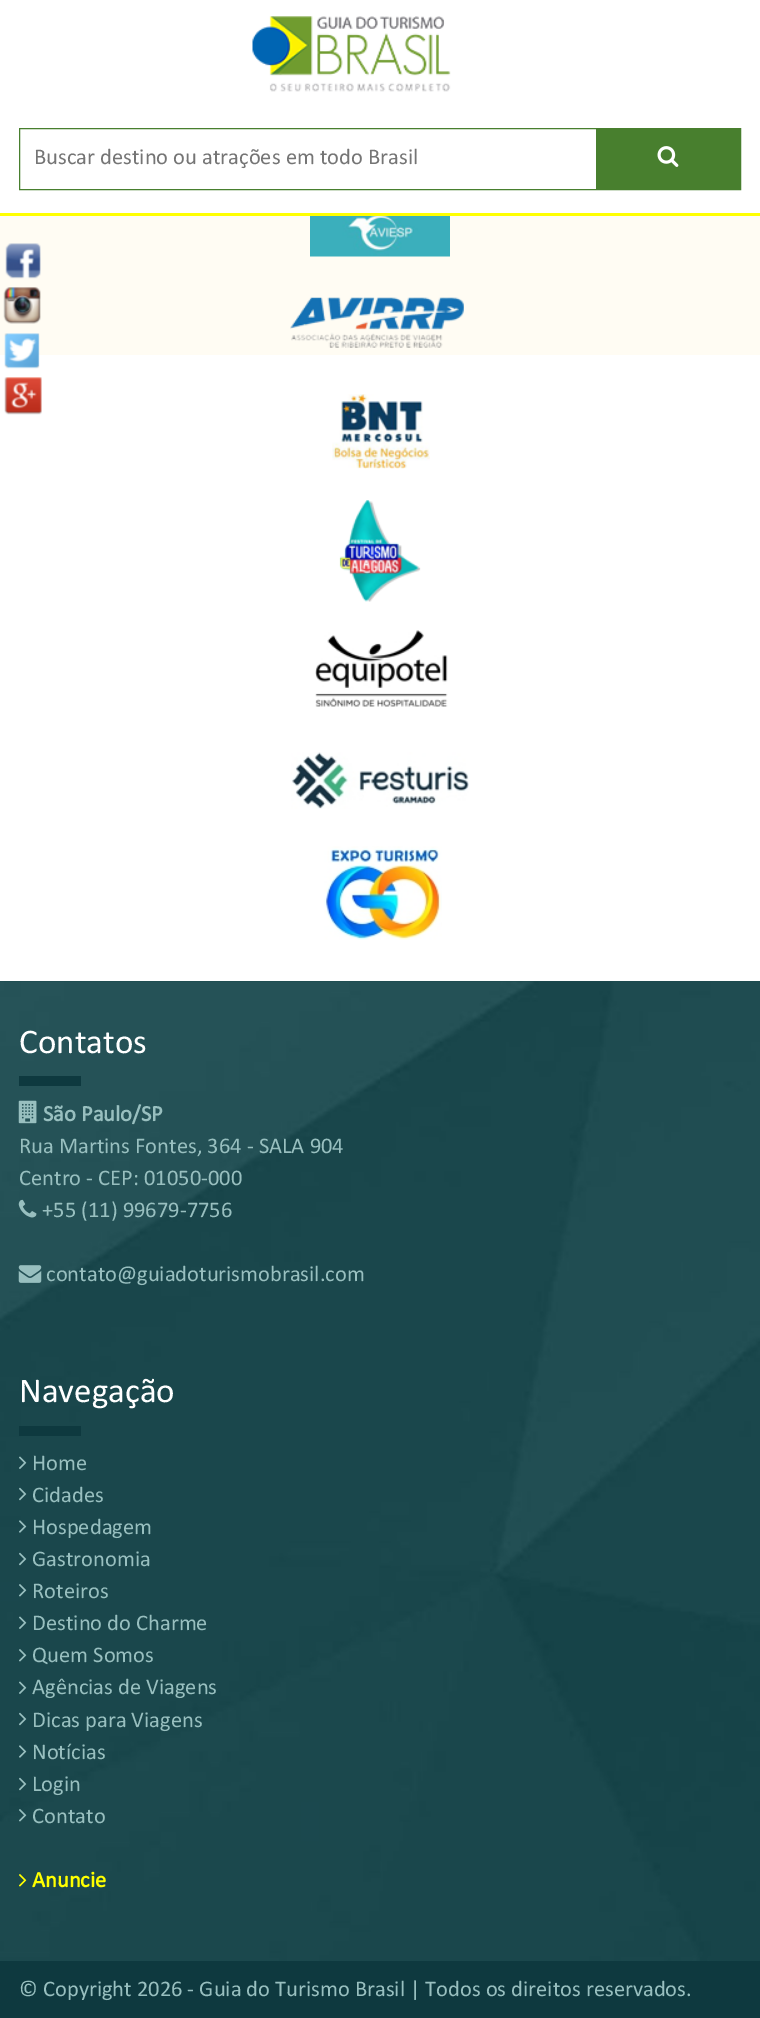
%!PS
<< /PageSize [760 2018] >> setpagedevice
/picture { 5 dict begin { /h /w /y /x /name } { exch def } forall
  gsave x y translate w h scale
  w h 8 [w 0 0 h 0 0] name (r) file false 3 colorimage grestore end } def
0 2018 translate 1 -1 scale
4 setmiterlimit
1 setgray
0 0 760 2018 rectfill
(img1.rgb) 252 16 199 76 picture
0.282 0.498 0.18 setrgbcolor
19.5 128.5 721 61 rectstroke
/Calibri-Regular [22.5 0 0 -22.5 0 0] selectfont
0.459 setgray
34 164 moveto (Buscar destino ou atrações em todo Brasil) show
0.282 0.498 0.18 setrgbcolor
596 129 144 60 rectfill
(img2.rgb) 657 146 22 21 picture
1 1 0 setrgbcolor
0 213 760 3 rectfill
1 0.988 0.953 setrgbcolor
0 216 760 139 rectfill
(img3.rgb) 310 216 140 41 picture
(img4.rgb) 290 297 174 51 picture
(img5.rgb) 332 394 98 75 picture
(img6.rgb) 339 500 82 102 picture
(img7.rgb) 315 630 133 77 picture
(img8.rgb) 291 752 178 57 picture
(img9.rgb) 324 846 118 94 picture
(img10.rgb) 5 243 36 36 picture
(img11.rgb) 3 287 38 37 picture
(img12.rgb) 4 333 36 36 picture
(img13.rgb) 4 377 38 38 picture
0.11 0.286 0.306 setrgbcolor
0 981 760 1 rectfill
(img14.rgb) 0 981 760 980 picture
/Calibri-Regular [35 0 0 -35 0 0] selectfont
1 setgray
19 1053 moveto (Contatos) show
0.055 0.224 0.247 setrgbcolor
19 1076 62 10 rectfill
(img15.rgb) 18 1100 19 24 picture
/Calibri-Bold [22.5 0 0 -22.5 0 0] selectfont
0.596 0.749 0.749 setrgbcolor
43 1121 moveto (São Paulo/SP) show
/Calibri-Regular [22.5 0 0 -22.5 0 0] selectfont
19 1153 moveto (Rua Martins Fontes, 364 - SALA 904) show
19 1185 moveto (Centro - CEP: 01050-000) show
(img16.rgb) 18 1199 19 19 picture
42 1217 moveto (+55 \(11\) 99679-7756) show
(img17.rgb) 18 1265 24 18 picture
46 1281 moveto (contato@guiadoturismobrasil.com) show
/Calibri-Regular [35 0 0 -35 0 0] selectfont
1 setgray
19 1402 moveto (Navegação) show
0.055 0.224 0.247 setrgbcolor
19 1426 62 10 rectfill
(img18.rgb) 19 1456 8 13 picture
/Calibri-Regular [22.5 0 0 -22.5 0 0] selectfont
0.596 0.749 0.749 setrgbcolor
32 1470 moveto (Home) show
(img19.rgb) 19 1487 8 14 picture
32 1502 moveto (Cidades) show
(img20.rgb) 19 1520 8 13 picture
32 1534 moveto (Hospedagem) show
(img19.rgb) 19 1552 8 14 picture
32 1566 moveto (Gastronomia) show
(img21.rgb) 19 1584 8 13 picture
32 1598 moveto (Roteiros) show
(img18.rgb) 19 1616 8 13 picture
32 1630 moveto (Destino do Charme) show
(img21.rgb) 19 1649 8 13 picture
32 1662 moveto (Quem Somos) show
(img18.rgb) 19 1681 8 13 picture
32 1694 moveto (Agências de Viagens) show
(img19.rgb) 19 1712 8 14 picture
32 1727 moveto (Dicas para Viagens) show
(img22.rgb) 19 1745 8 13 picture
32 1759 moveto (Notícias) show
(img19.rgb) 19 1777 8 14 picture
32 1791 moveto (Login) show
(img23.rgb) 19 1809 8 13 picture
32 1823 moveto (Contato) show
(img24.rgb) 19 1874 8 13 picture
/Calibri-Bold [22.5 0 0 -22.5 0 0] selectfont
1 1 0 setrgbcolor
32 1887 moveto (Anuncie) show
0.055 0.224 0.247 setrgbcolor
0 1961 760 57 rectfill
/Calibri-Regular [22.5 0 0 -22.5 0 0] selectfont
0.596 0.749 0.749 setrgbcolor
19 1996 moveto (© Copyright 2026 - Guia do Turismo Brasil | Todos os direitos reservados.) show
showpage
